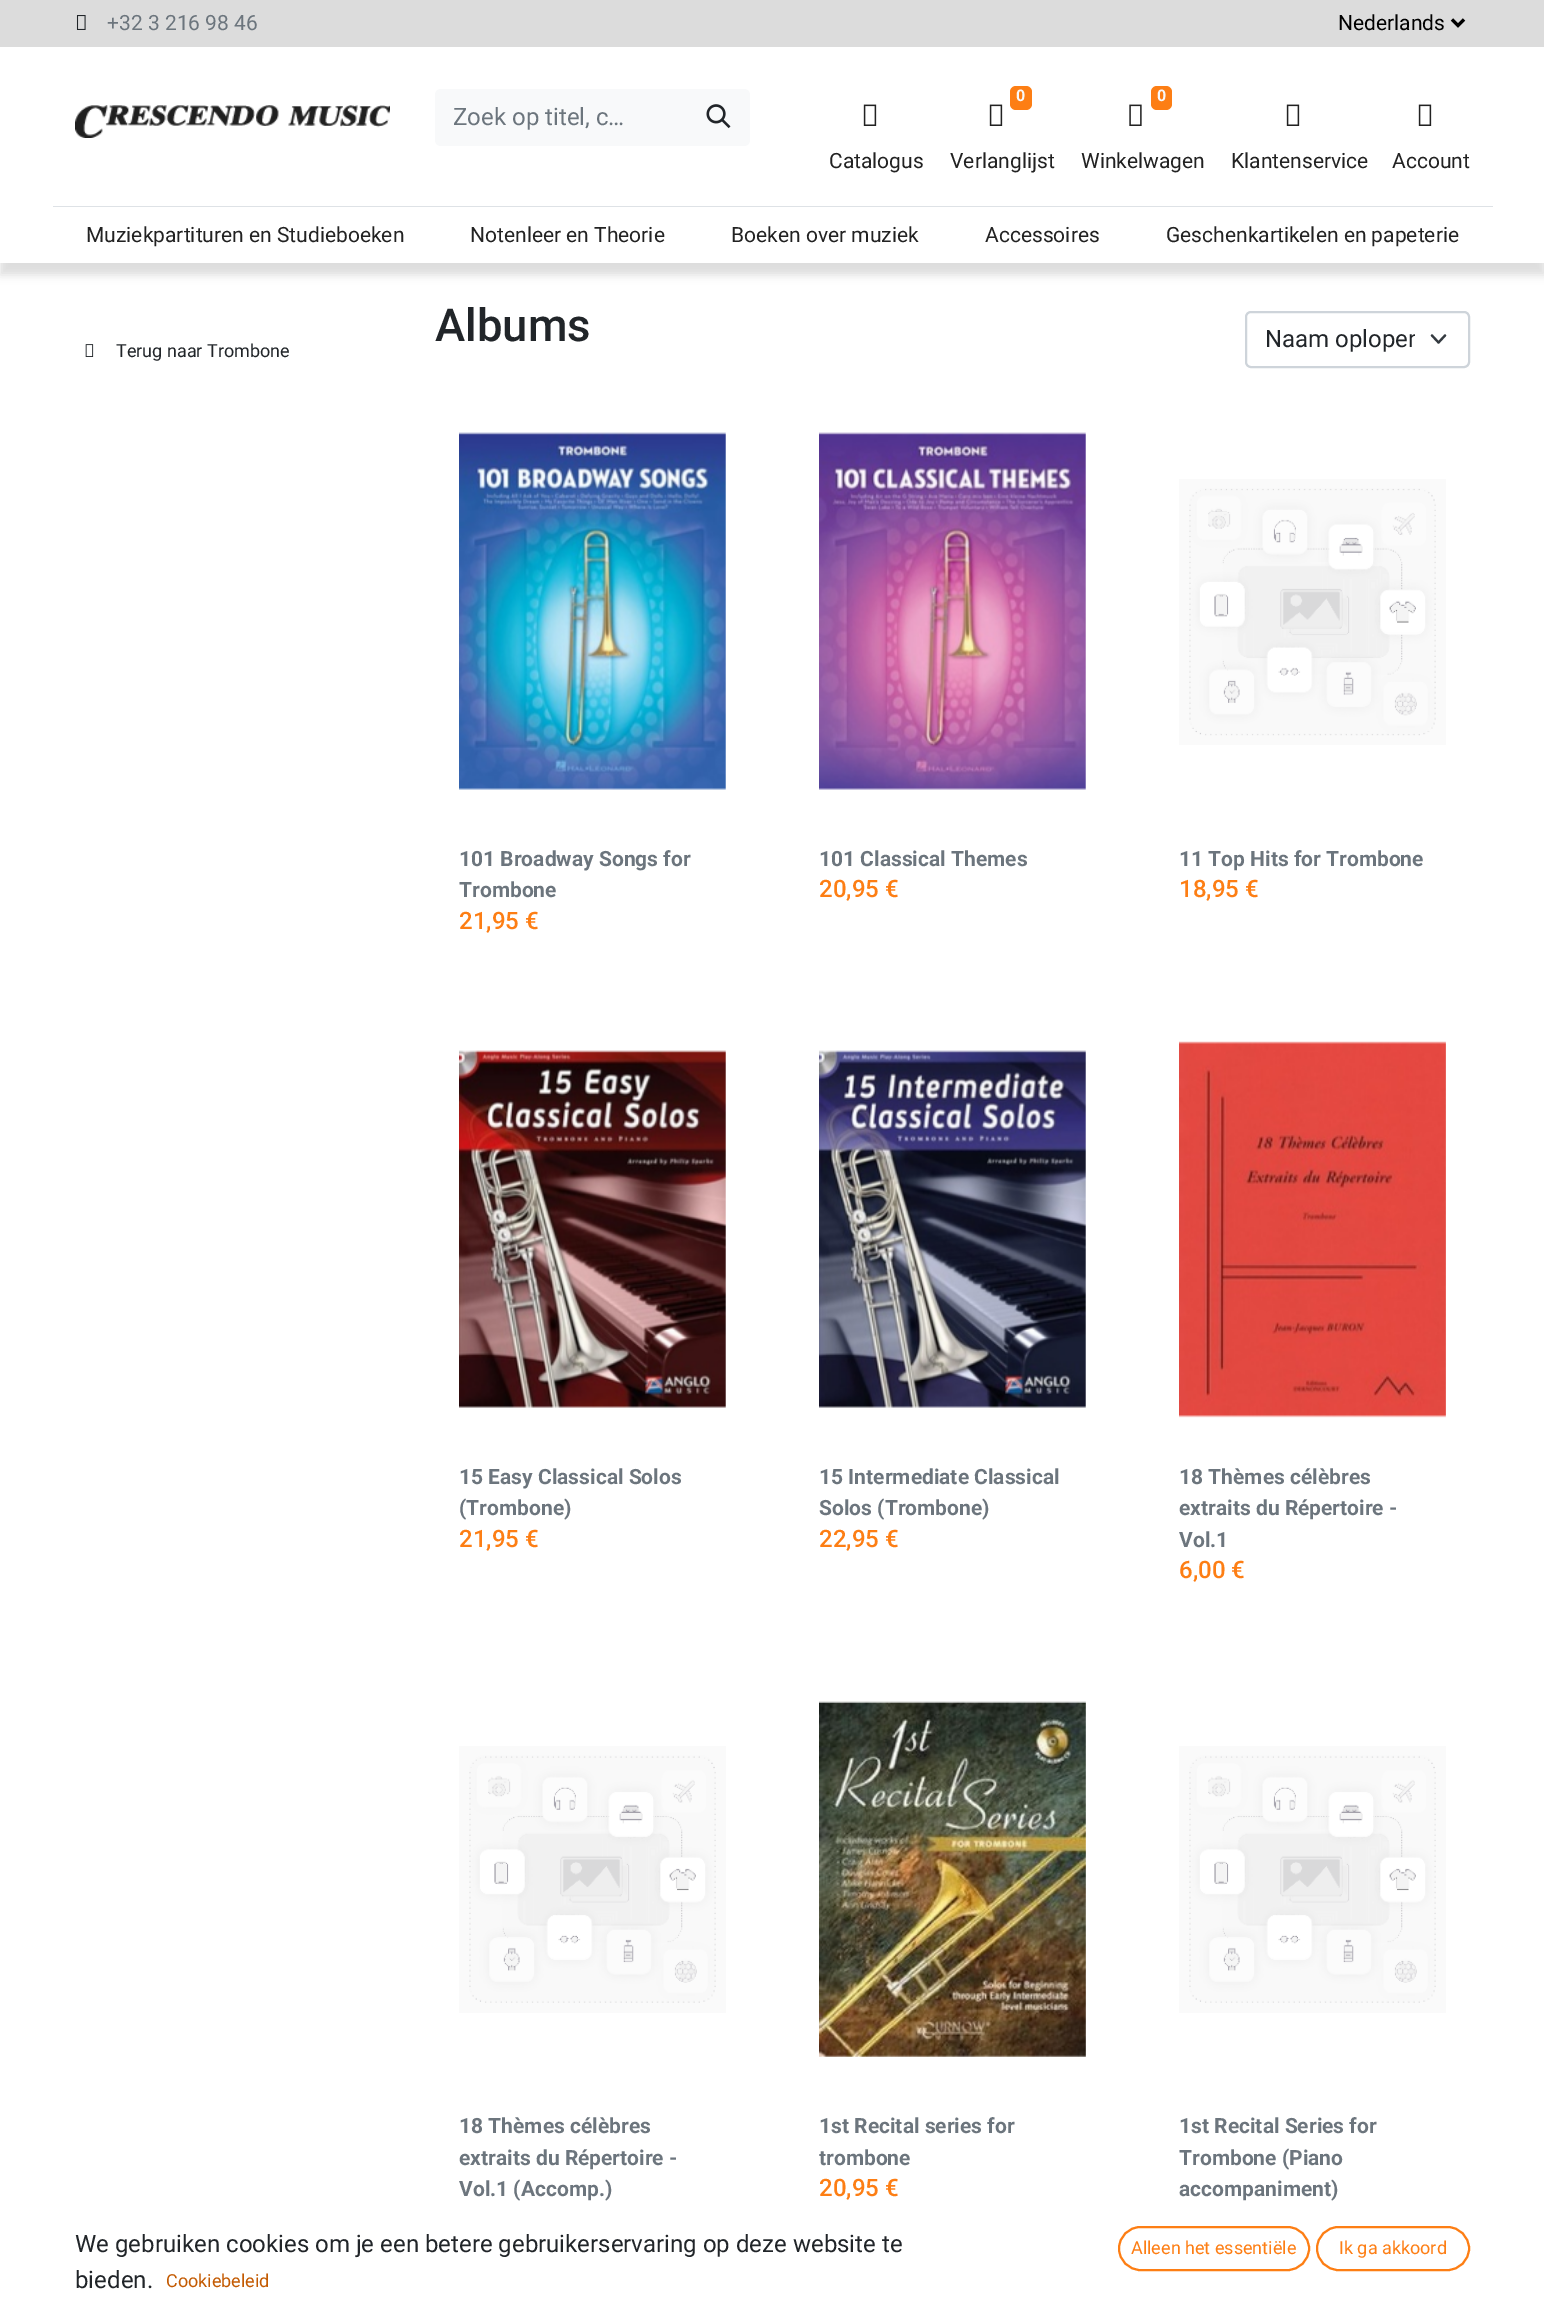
%!PS
<< /PageSize [1544 2322] /PageUsesTransparency true >> setpagedevice
/alpha { dup .setfillconstantalpha .setstrokeconstantalpha } def
/roundrect { 5 dict begin { /r /h /w /y /x } { exch def } forall
  x r add y moveto x w add y 2 copy h add r arct x w add y h add x 1 index r arct
  x y h add x y r arct x y 2 copy exch w add exch r arct closepath end } def
/shadow { 12 dict begin { /a /b /q /h /w /y /x } { exch def } forall gsave /was 0 def
  9 -2 -9 { dup b mul 4 div /e exch def 1 sub .425 mul 2.718 exch exp 1 add a .99 .min exch div /now exch def
    1 1 now sub 1 was sub div sub alpha /was now def
    w h .min e 2 mul add 0 gt { x e sub y e sub w e 2 mul add h e 2 mul add
      q e add b .6 mul add w h .min 2 div e add .min 0 .max roundrect fill } if } for grestore end } def
/picture { 5 dict begin { /h /w /y /x /name } { exch def } forall
  gsave x y translate w h scale
  w h 8 [w 0 0 h 0 0] name (r) file false 3 colorimage grestore end } def
0 .pushpdf14devicefilter
0 2322 translate 1 -1 scale
4 setmiterlimit
1 setgray
0 0 1544 2322 rectfill
0.863 setgray
0 0 1544 47 rectfill
(img1.rgb) 76 15 10 15 picture
/Roboto-Regular [21 0 0 -21 0 0] selectfont
0.424 0.459 0.49 setrgbcolor
107 30 moveto (+32 3 216 98 46) show
0 setgray
3 setlinewidth
newpath 1452 19.5 moveto 1458 25.5 lineto 1464 19.5 lineto stroke
1338 30 moveto (Nederlands) show
gsave
newpath 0 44 moveto 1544 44 lineto 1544 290 lineto 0 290 lineto closepath 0 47 moveto 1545 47 lineto 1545 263 lineto 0 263 lineto closepath eoclip newpath
0.78 setgray
0 59 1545 216 0 4.5 0.62 shadow
grestore
(img2.rgb) 75 105 315 33 picture
0.973 0.976 0.98 setrgbcolor
newpath 441 89 moveto 689 89 lineto 689 146 lineto 441 146 lineto 437.5 146 435 143.5 435 140 curveto 435 95 lineto 435 91.5 437.5 89 441 89 curveto closepath fill
/Roboto-Regular [24 0 0 -24 0 0] selectfont
0.424 0.459 0.49 setrgbcolor
453 125 moveto (Zoek op titel, c…) show
0.973 0.976 0.98 setrgbcolor
newpath 687 89 moveto 744 89 lineto 747.5 89 750 91.5 750 95 curveto 750 140 lineto 750 143.5 747.5 146 744 146 curveto 687 146 lineto closepath fill
(img3.rgb) 706 104 25 25 picture
(img4.rgb) 863 104 14 22 picture
/Roboto-Regular [21 0 0 -21 0 0] selectfont
0.133 setgray
829 168 moveto (Catalogus) show
0.992 0.494 0.078 setrgbcolor
1010 86 22 24 6 roundrect fill
/Roboto-Bold [16 0 0 -16 0 0] selectfont
0.973 0.976 0.98 setrgbcolor
1016 101 moveto (0) show
(img4.rgb) 989 104 14 22 picture
/Roboto-Regular [21 0 0 -21 0 0] selectfont
0.133 setgray
950 168 moveto (Verlanglijst) show
0.992 0.494 0.078 setrgbcolor
1151 86 21 24 6 roundrect fill
/Roboto-Bold [16 0 0 -16 0 0] selectfont
0.973 0.976 0.98 setrgbcolor
1157 101 moveto (0) show
(img5.rgb) 1129 104 13 22 picture
/Roboto-Regular [21 0 0 -21 0 0] selectfont
0.133 setgray
1081 168 moveto (Winkelwagen) show
(img4.rgb) 1286 104 14 22 picture
1231 168 moveto (Klantenservice) show
(img4.rgb) 1418 104 14 22 picture
1392 168 moveto (Account) show
0.871 0.886 0.902 setrgbcolor
53 206 1440 1 rectfill
1 setgray
53 262 1440 1 rectfill
0.133 setgray
86 242 moveto (Muziekpartituren en Studieboeken) show
470 242 moveto (Notenleer en Theorie) show
731 242 moveto (Boeken over muziek) show
985 242 moveto (Accessoires) show
1166 242 moveto (Geschenkartikelen en papeterie) show
(img6.rgb) 85 344 9 13 picture
/Roboto-Regular [18 0 0 -18 0 0] selectfont
0.129 0.145 0.161 setrgbcolor
116 357 moveto (Terug naar Trombone) show
/Roboto-Medium [45.5 0 0 -45.5 0 0] selectfont
435 341 moveto (Albums) show
0.204 0.227 0.251 setrgbcolor
2.2 setlinewidth
1 setlinecap
1 setlinejoin
newpath 1432 335.5 moveto 1438.5 342.5 lineto 1445 335.5 lineto stroke
0.808 0.831 0.855 setrgbcolor
2 setlinewidth
0 setlinecap
0 setlinejoin
1246 312 223 55 5 roundrect stroke
gsave
1265 321 150 36 rectclip
/Roboto-Regular [24 0 0 -24 0 0] selectfont
0.129 0.145 0.161 setrgbcolor
1265 347 moveto (Naam oplopen) show
grestore
(img7.rgb) 459 432 267 358 picture
/Roboto-Bold [21 0 0 -21 0 0] selectfont
0.424 0.459 0.49 setrgbcolor
459 866 moveto (101 Broadway Songs for) show
459 897 moveto (Trombone) show
/Roboto-Medium [24 0 0 -24 0 0] selectfont
0.992 0.494 0.078 setrgbcolor
459 929 moveto (21,95 €) show
(img8.rgb) 819 432 267 358 picture
/Roboto-Bold [21 0 0 -21 0 0] selectfont
0.424 0.459 0.49 setrgbcolor
819 866 moveto (101 Classical Themes) show
/Roboto-Medium [24 0 0 -24 0 0] selectfont
0.992 0.494 0.078 setrgbcolor
819 897 moveto (20,95 €) show
(img9.rgb) 1179 479 267 266 picture
/Roboto-Bold [21 0 0 -21 0 0] selectfont
0.424 0.459 0.49 setrgbcolor
1179 866 moveto (11 Top Hits for Trombone) show
/Roboto-Medium [24 0 0 -24 0 0] selectfont
0.992 0.494 0.078 setrgbcolor
1179 897 moveto (18,95 €) show
(img10.rgb) 459 1050 267 358 picture
/Roboto-Bold [21 0 0 -21 0 0] selectfont
0.424 0.459 0.49 setrgbcolor
459 1484 moveto (15 Easy Classical Solos) show
459 1515 moveto (\(Trombone\)) show
/Roboto-Medium [24 0 0 -24 0 0] selectfont
0.992 0.494 0.078 setrgbcolor
459 1547 moveto (21,95 €) show
(img11.rgb) 819 1050 267 358 picture
/Roboto-Bold [21 0 0 -21 0 0] selectfont
0.424 0.459 0.49 setrgbcolor
819 1484 moveto (15 Intermediate Classical) show
819 1515 moveto (Solos \(Trombone\)) show
/Roboto-Medium [24 0 0 -24 0 0] selectfont
0.992 0.494 0.078 setrgbcolor
819 1547 moveto (22,95 €) show
(img12.rgb) 1179 1041 267 377 picture
/Roboto-Bold [21 0 0 -21 0 0] selectfont
0.424 0.459 0.49 setrgbcolor
1179 1484 moveto (18 Thèmes célèbres) show
1179 1515 moveto (extraits du Répertoire -) show
1179 1547 moveto (Vol.1) show
/Roboto-Medium [24 0 0 -24 0 0] selectfont
0.992 0.494 0.078 setrgbcolor
1179 1578 moveto (6,00 €) show
(img13.rgb) 459 1746 267 267 picture
/Roboto-Bold [21 0 0 -21 0 0] selectfont
0.424 0.459 0.49 setrgbcolor
459 2133 moveto (18 Thèmes célèbres) show
459 2165 moveto (extraits du Répertoire -) show
459 2196 moveto (Vol.1 \(Accomp.\)) show
(img14.rgb) 819 1701 267 356 picture
819 2133 moveto (1st Recital series for) show
819 2165 moveto (trombone) show
/Roboto-Medium [24 0 0 -24 0 0] selectfont
0.992 0.494 0.078 setrgbcolor
819 2196 moveto (20,95 €) show
(img13.rgb) 1179 1746 267 267 picture
/Roboto-Bold [21 0 0 -21 0 0] selectfont
0.424 0.459 0.49 setrgbcolor
1179 2133 moveto (1st Recital Series for) show
1179 2165 moveto (Trombone \(Piano) show
1179 2196 moveto (accompaniment\)) show
/Roboto-Regular [24 0 0 -24 0 0] selectfont
0.129 0.145 0.161 setrgbcolor
75 2252 moveto (We gebruiken cookies om je een betere gebruikerservaring op deze website te) show
75 2288 moveto (bieden.) show
/Roboto-Regular [18 0 0 -18 0 0] selectfont
0.765 0.353 0.008 setrgbcolor
166 2287 moveto (Cookiebeleid) show
0.992 0.494 0.078 setrgbcolor
1119 2227 190 43 21.5 roundrect stroke
1131 2254 moveto (Alleen het essentiële) show
1317 2227 152 43 21.5 roundrect stroke
1339 2254 moveto (Ik ga akkoord) show
.poppdf14devicefilter showpage
